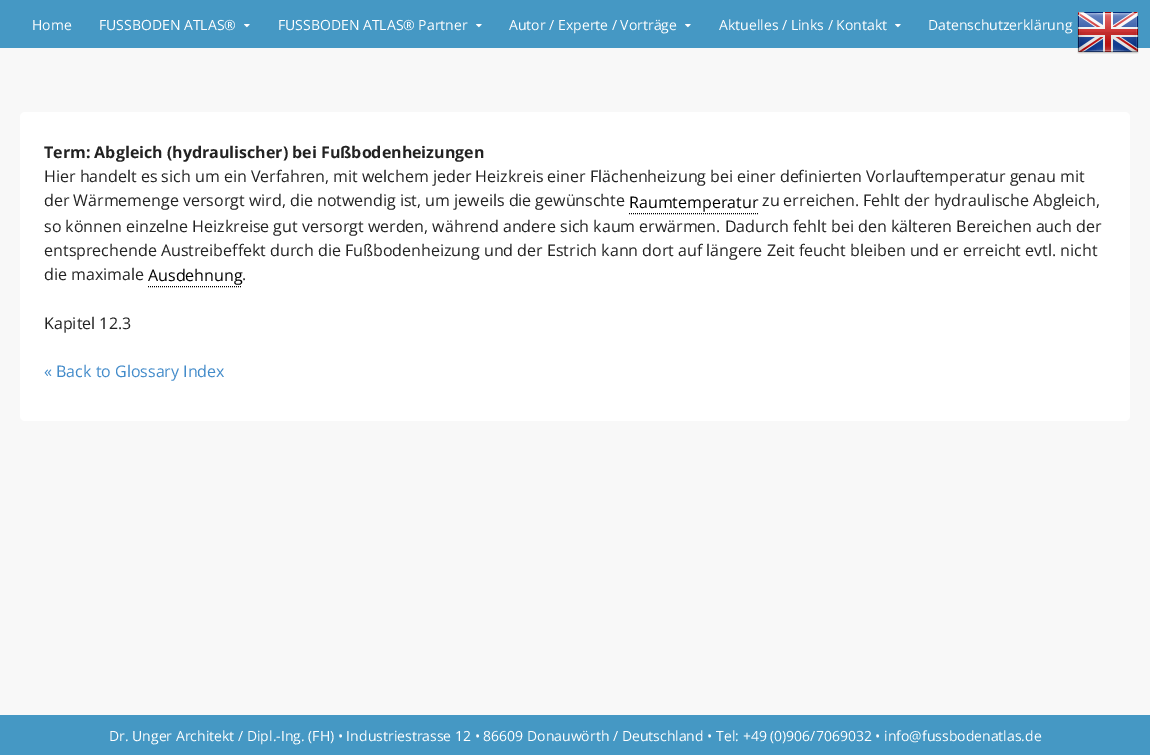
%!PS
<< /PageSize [1150 755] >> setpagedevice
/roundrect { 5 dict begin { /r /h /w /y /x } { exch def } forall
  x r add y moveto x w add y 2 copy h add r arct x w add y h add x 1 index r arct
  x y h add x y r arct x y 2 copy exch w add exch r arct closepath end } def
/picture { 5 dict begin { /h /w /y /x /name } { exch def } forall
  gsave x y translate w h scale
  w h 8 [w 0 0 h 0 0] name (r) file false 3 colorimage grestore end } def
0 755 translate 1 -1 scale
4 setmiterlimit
0.973 setgray
0 0 1150 755 rectfill
0.271 0.596 0.769 setrgbcolor
0 0 1150 48 rectfill
/OpenSans-Regular [14 0 0 -14 0 0] selectfont
1 setgray
32 30 moveto (Home) show
99 30 moveto (FUSSBODEN ATLAS®) show
(img1.rgb) 244 24 6 4 picture
278 30 moveto (FUSSBODEN ATLAS® Partner) show
(img1.rgb) 476 24 6 4 picture
509 30 moveto (Autor / Experte / Vorträge) show
(img1.rgb) 685 24 6 4 picture
719 30 moveto (Aktuelles / Links / Kontakt) show
(img1.rgb) 895 24 6 4 picture
928 30 moveto (Datenschutzerklärung) show
20 112 1110 309 5 roundrect fill
/OpenSans-Bold [16 0 0 -16 0 0] selectfont
0.133 setgray
44 158 moveto (Term: Abgleich \(hydraulischer\) bei Fußbodenheizungen) show
/OpenSans-Regular [16 0 0 -16 0 0] selectfont
44 182 moveto (Hier handelt es sich um ein Verfahren, mit welchem jeder Heizkreis einer Flächenheizung bei einer definierten Vorlauftemperatur genau mit) show
44 206 moveto (der Wärmemenge versorgt wird, die notwendig ist, um jeweils die gewünschte) show
0 setgray
629 208 moveto (Raumtemperatur) show
[1 1] 0 setdash
newpath 629 213.5 moveto 758 213.5 lineto stroke
0.133 setgray
762 206 moveto (zu erreichen. Fehlt der hydraulische Abgleich,) show
44 232 moveto (so können einzelne Heizkreise gut versorgt werden, während andere sich kaum erwärmen. Dadurch fehlt bei den kälteren Bereichen auch der) show
44 256 moveto (entsprechende Austreibeffekt durch die Fußbodenheizung und der Estrich kann dort auf längere Zeit feucht bleiben und er erreicht evtl. nicht) show
44 280 moveto (die maximale) show
0 setgray
148 281 moveto (Ausdehnung) show
newpath 148 286.5 moveto 242 286.5 lineto stroke
0.133 setgray
242 280 moveto (.) show
44 329 moveto (Kapitel 12.3) show
0.259 0.545 0.792 setrgbcolor
44 377 moveto (« Back to Glossary Index) show
0.271 0.596 0.769 setrgbcolor
0 715 1150 40 rectfill
/OpenSans-Regular [14 0 0 -14 0 0] selectfont
1 setgray
109 741 moveto (Dr. Unger Architekt / Dipl.-Ing. \(FH\) • Industriestrasse 12 • 86609 Donauwörth / Deutschland • Tel: +49 \(0\)906/7069032 • info@fussbodenatlas.de) show
(img2.rgb) 1077 12 62 42 picture
showpage
